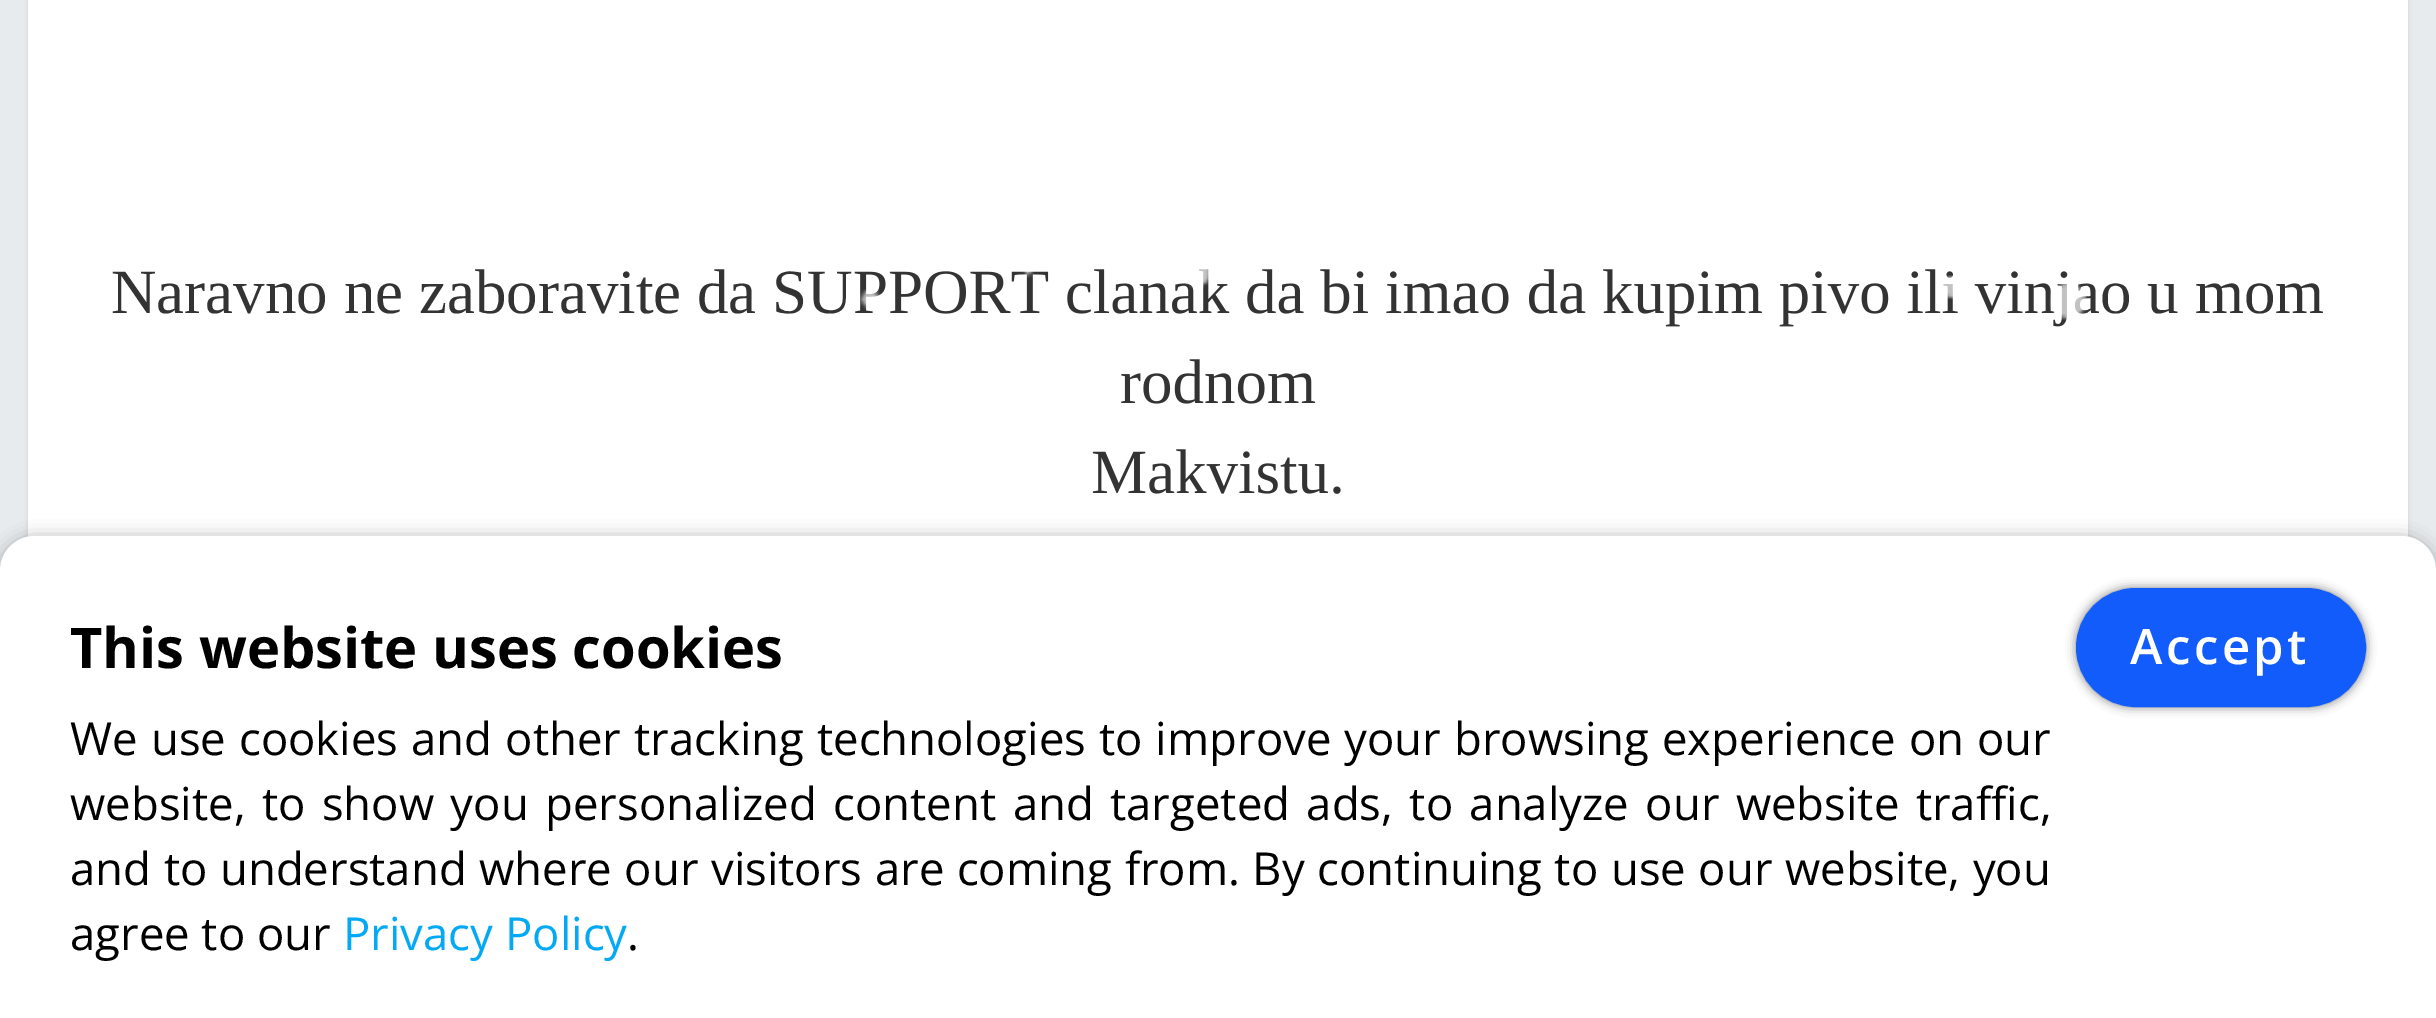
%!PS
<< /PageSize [2436 1018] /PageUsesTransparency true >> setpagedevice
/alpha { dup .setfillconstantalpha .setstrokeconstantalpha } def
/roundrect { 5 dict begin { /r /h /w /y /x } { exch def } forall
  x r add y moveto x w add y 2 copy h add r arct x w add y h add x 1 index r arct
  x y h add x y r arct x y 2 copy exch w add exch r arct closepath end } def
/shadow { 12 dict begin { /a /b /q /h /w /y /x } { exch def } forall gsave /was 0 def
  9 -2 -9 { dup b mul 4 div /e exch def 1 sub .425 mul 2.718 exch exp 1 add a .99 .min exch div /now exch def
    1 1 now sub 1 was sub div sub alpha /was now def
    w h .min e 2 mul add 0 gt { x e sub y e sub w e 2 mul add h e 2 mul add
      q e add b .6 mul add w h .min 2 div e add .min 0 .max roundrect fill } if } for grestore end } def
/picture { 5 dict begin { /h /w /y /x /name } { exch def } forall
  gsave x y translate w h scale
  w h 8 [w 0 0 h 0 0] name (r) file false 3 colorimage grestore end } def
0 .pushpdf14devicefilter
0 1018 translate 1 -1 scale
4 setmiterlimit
0.906 0.922 0.933 setrgbcolor
0 0 2436 1018 rectfill
0 setgray
28 -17 2380 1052 11 2 0.1 shadow
1 setgray
28 0 2380 537 rectfill
/LiberationSerif-Regular [63 0 0 -63 0 0] selectfont
0.2 setgray
111 313 moveto (Naravno ne zaboravite da SUPPORT clanak da bi imao da kupim pivo ili vinjao u mom) show
1120 403 moveto (rodnom) show
1091 493 moveto (Makvistu.) show
(img1.rgb) 860 269 1228 254 picture
0 setgray
0 539 2436 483 35 9 0.35 shadow
1 setgray
newpath 35 536 moveto 2401 536 lineto 2420.5 536 2436 551.5 2436 571 curveto 2436 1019 lineto 0 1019 lineto 0 571 lineto 0 551.5 15.5 536 35 536 curveto closepath fill
/OpenSans-Bold [56 0 0 -56 0 0] selectfont
0 setgray
70 668 moveto (This website uses cookies) show
2076 588 290 119 59.5 5 0.5 shadow
0.067 0.361 0.98 setrgbcolor
2078 590 286 115 57.5 roundrect gsave fill grestore
4 setlinewidth
stroke
/OpenSans-SemiBold [49 0 0 -49 0 0] selectfont
1 setgray
2130 664 moveto 3.5 0 (Accept) ashow
/OpenSans-Regular [45.5 0 0 -45.5 0 0] selectfont
0 setgray
70 755 moveto 1.25 0 32 (We use cookies and other tracking technologies to improve your browsing experience on our) widthshow
70 820 moveto 4.6 0 32 (website, to show you personalized content and targeted ads, to analyze our website traffic,) widthshow
70 885 moveto 0.75 0 32 (and to understand where our visitors are coming from. By continuing to use our website, you) widthshow
70 950 moveto (agree to our) show
0.012 0.663 0.957 setrgbcolor
343 950 moveto (Privacy Policy) show
0 setgray
627 950 moveto (.) show
.poppdf14devicefilter showpage
